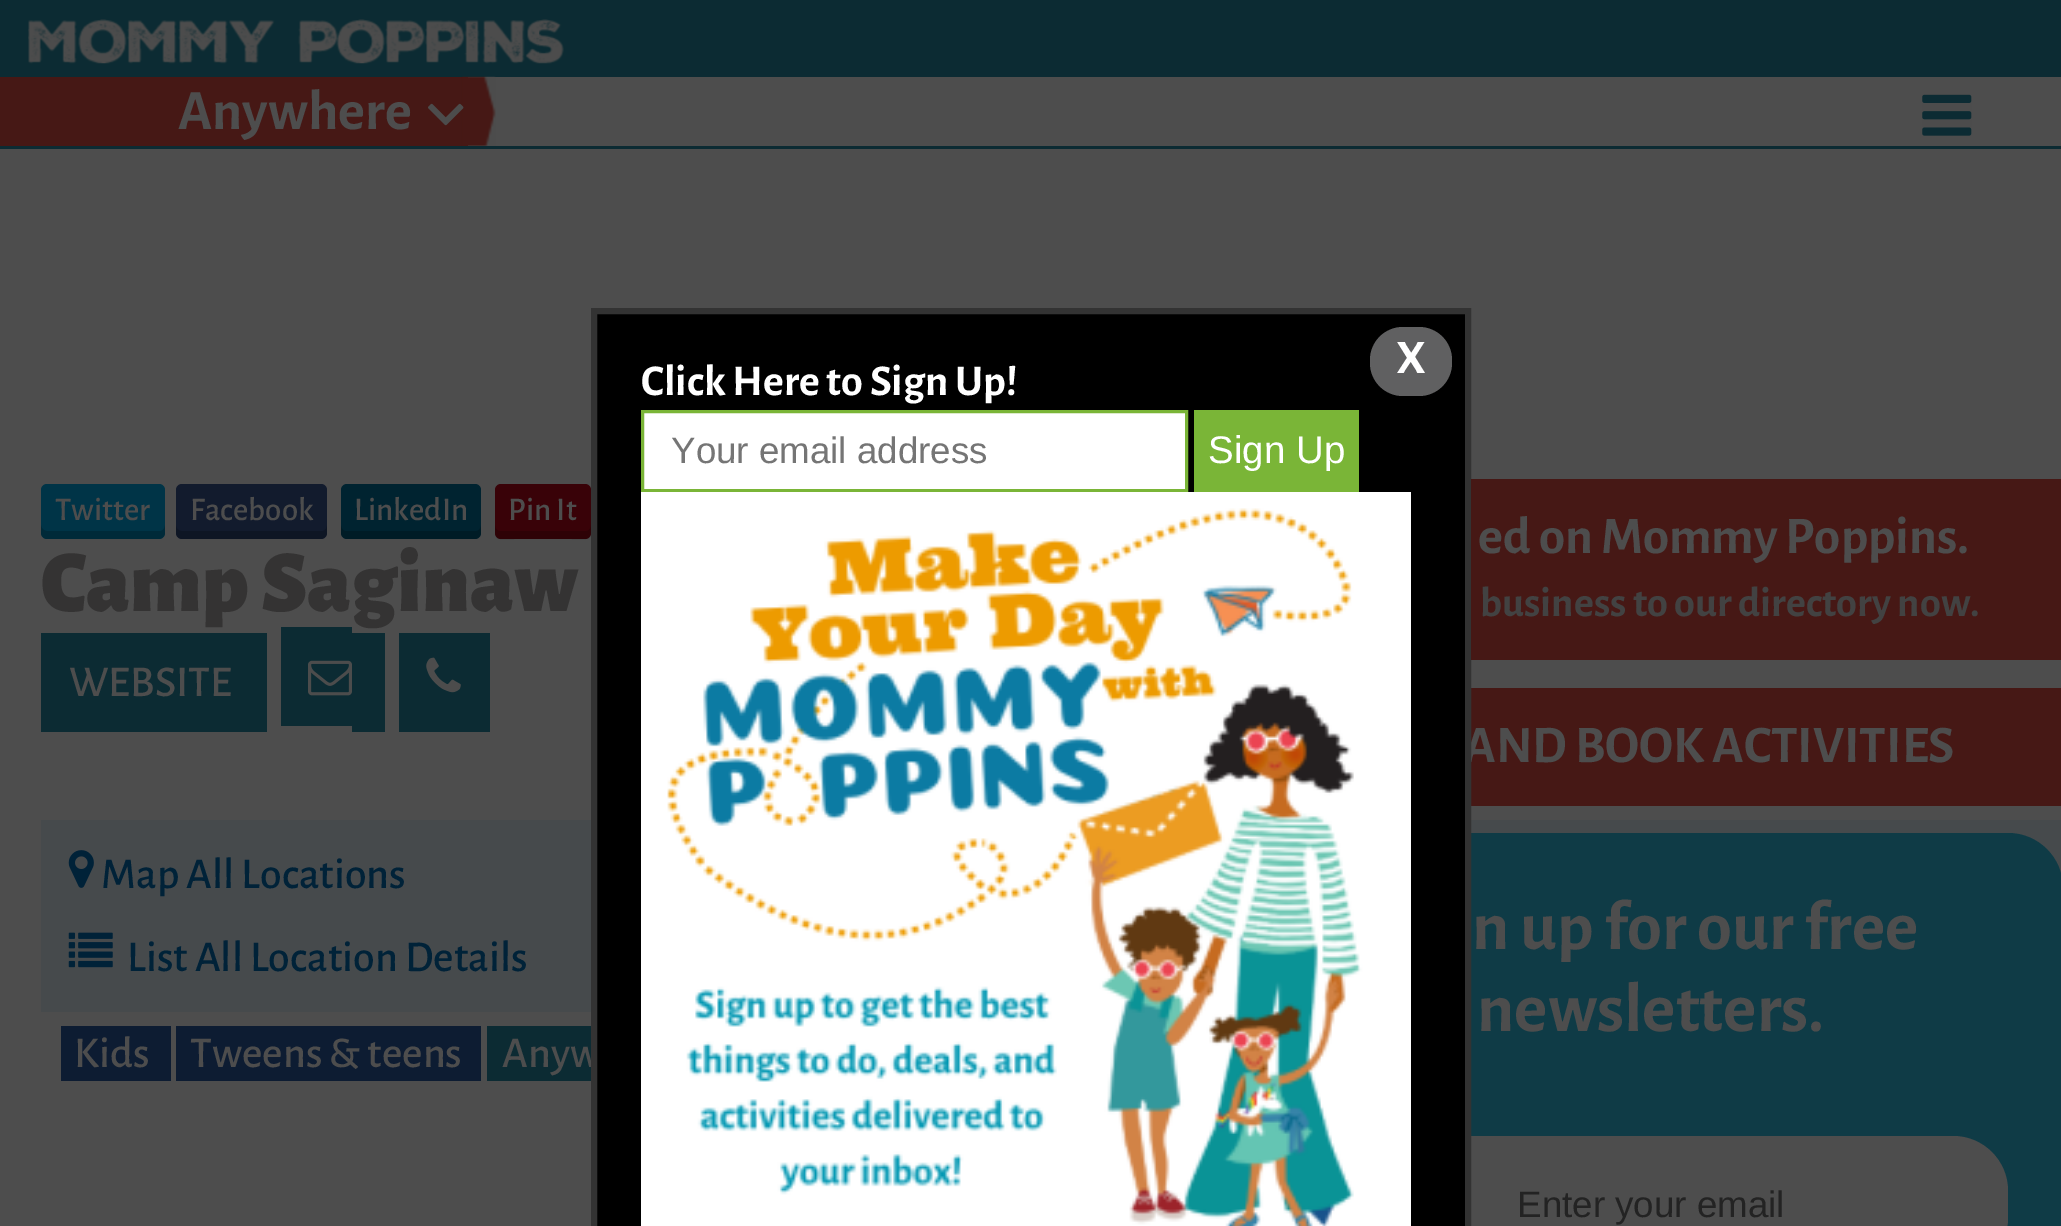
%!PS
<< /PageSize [2061 1226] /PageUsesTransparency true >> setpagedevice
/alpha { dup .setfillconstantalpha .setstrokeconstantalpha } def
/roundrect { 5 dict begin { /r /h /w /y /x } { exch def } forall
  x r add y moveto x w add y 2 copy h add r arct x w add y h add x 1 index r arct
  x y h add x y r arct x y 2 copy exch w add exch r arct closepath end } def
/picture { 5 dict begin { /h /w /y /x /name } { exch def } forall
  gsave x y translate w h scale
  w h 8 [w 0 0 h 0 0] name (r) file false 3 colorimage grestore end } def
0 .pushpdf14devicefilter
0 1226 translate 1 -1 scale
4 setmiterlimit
0.302 setgray
0 0 2061 1226 rectfill
0.047 0.169 0.2 setrgbcolor
0 0 2061 77 rectfill
(img1.rgb) 28 19 536 45 picture
0 146 2061 3 rectfill
0.275 0.094 0.082 setrgbcolor
0 77 468 69 rectfill
/AlegreyaSans-Bold [57 0 0 -57 0 0] selectfont
0.302 setgray
178 129 moveto (Anywhere) show
(img3.rgb) 461 76 35 70 picture
(img2.rgb) 428 103 36 23 picture
(img4.rgb) 1922 94 50 42 picture
0.275 0.094 0.082 setrgbcolor
1471 688 590 118 rectfill
/AlegreyaSans-Bold [52.75 0 0 -52.75 0 0] selectfont
0.302 setgray
1464 762 moveto (AND BOOK ACTIVITIES) show
0.275 0.29 0.298 setrgbcolor
41 820 2020 192 rectfill
0.059 0.231 0.275 setrgbcolor
1238 833 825 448 55 roundrect fill
0.302 setgray
1293 1136 715 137 55 roundrect fill
0.047 0.169 0.2 setrgbcolor
487 1026 104 55 rectfill
/AlegreyaSans-Medium [44 0 0 -44 0 0] selectfont
0.302 setgray
502 1067 moveto (Anyw) show
0 setgray
newpath 594 311 moveto 1468 311 lineto 1468 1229 lineto 594 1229 lineto closepath gsave fill grestore
0.2 setgray
6 setlinewidth
stroke
0.376 0.376 0.38 setrgbcolor
1370 327 82 69 33 roundrect fill
/AlegreyaSans-Bold [48 0 0 -48 0 0] selectfont
1 setgray
1396 373 moveto (X) show
/AlegreyaSans-Bold [44 0 0 -44 0 0] selectfont
641 395 moveto (Click Here to Sign Up!) show
newpath 642.5 411.5 moveto 1186.5 411.5 lineto 1186.5 490.5 lineto 642.5 490.5 lineto closepath gsave fill grestore
0.478 0.71 0.216 setrgbcolor
3 setlinewidth
stroke
/LiberationSans-Regular [36.75 0 0 -36.75 0 0] selectfont
0.459 setgray
671 463 moveto (Your email address) show
0.478 0.71 0.216 setrgbcolor
1194 410 165 82 rectfill
/LiberationSans-Regular [38.5 0 0 -38.5 0 0] selectfont
1 setgray
1208 463 moveto (Sign Up) show
(img5.rgb) 641 492 770 734 picture
0 0.204 0.278 setrgbcolor
41 484 124 55 6 roundrect fill
0.2 alpha
0 setgray
newpath 41 525 moveto 41 533 lineto 41 536 44 539 47 539 curveto 159 539 lineto 162 539 165 536 165 533 curveto 165 525 lineto 165 528 163 531 160 531 curveto 47 531 lineto 44 531 41 528 41 525 curveto closepath fill
/AlegreyaSans-Medium [33 0 0 -33 0 0] selectfont
1 alpha
0.302 setgray
55 520 moveto (Twitter) show
0.071 0.106 0.176 setrgbcolor
176 484 151 55 6 roundrect fill
0.2 alpha
0 setgray
newpath 176 525 moveto 176 533 lineto 176 536 179 539 182 539 curveto 321 539 lineto 324 539 327 536 327 533 curveto 327 525 lineto 327 528 325 531 322 531 curveto 182 531 lineto 178 531 176 528 176 525 curveto closepath fill
1 alpha
0.302 setgray
190 520 moveto (Facebook) show
0 0.137 0.188 setrgbcolor
341 484 140 55 6 roundrect fill
0.2 alpha
0 setgray
newpath 341 525 moveto 341 533 lineto 341 536 344 539 347 539 curveto 475 539 lineto 478 539 481 536 481 533 curveto 481 525 lineto 481 528 479 531 476 531 curveto 346 531 lineto 343 531 341 528 341 525 curveto closepath fill
1 alpha
0.302 setgray
354 520 moveto (LinkedIn) show
0.224 0.008 0.031 setrgbcolor
495 484 96 55 6 roundrect fill
0.2 alpha
0 setgray
newpath 495 525 moveto 495 542 496 539 515 539 curveto 571 539 lineto 590 539 591 542 591 525 curveto 591 528 589 531 586 531 curveto 500 531 lineto 497 531 495 528 495 525 curveto closepath fill
1 alpha
0.302 setgray
508 520 moveto (Pin It) show
/AlegreyaSans-Black [88 0 0 -88 0 0] selectfont
0.204 0.2 0.2 setrgbcolor
41 611 moveto (Camp Saginaw) show
0.275 0.094 0.082 setrgbcolor
1471 479 590 181 rectfill
/AlegreyaSans-Bold [52.75 0 0 -52.75 0 0] selectfont
0.302 setgray
1478 553 moveto (ed on Mommy Poppins.) show
/AlegreyaSans-Bold [42.25 0 0 -42.25 0 0] selectfont
0.259 setgray
1480 616 moveto (business to our directory now.) show
/AlegreyaSans-Bold [70.5 0 0 -70.5 0 0] selectfont
0.302 setgray
1472 949 moveto (n up for our free) show
1477 1031 moveto (newsletters.) show
/LiberationSans-Regular [36.75 0 0 -36.75 0 0] selectfont
0.137 setgray
1517 1217 moveto (Enter your email) show
0.047 0.169 0.2 setrgbcolor
41 633 226 99 rectfill
/AlegreyaSans-Medium [44 0 0 -44 0 0] selectfont
0.302 setgray
69 696 moveto (WEBSITE) show
0.047 0.169 0.2 setrgbcolor
281 627 71 99 rectfill
352 633 33 99 rectfill
(img6.rgb) 308 660 44 36 picture
399 633 91 99 rectfill
(img7.rgb) 426 657 35 36 picture
(img8.rgb) 68 850 26 38 picture
0 0.133 0.22 setrgbcolor
101 888 moveto (Map All Locations) show
(img9.rgb) 68 932 45 36 picture
127 971 moveto (List All Location Details) show
0.051 0.11 0.196 setrgbcolor
61 1026 110 55 rectfill
0.302 setgray
74 1067 moveto (Kids) show
0.051 0.11 0.196 setrgbcolor
176 1026 305 55 rectfill
0.302 setgray
190 1067 moveto (Tweens & teens) show
.poppdf14devicefilter showpage
